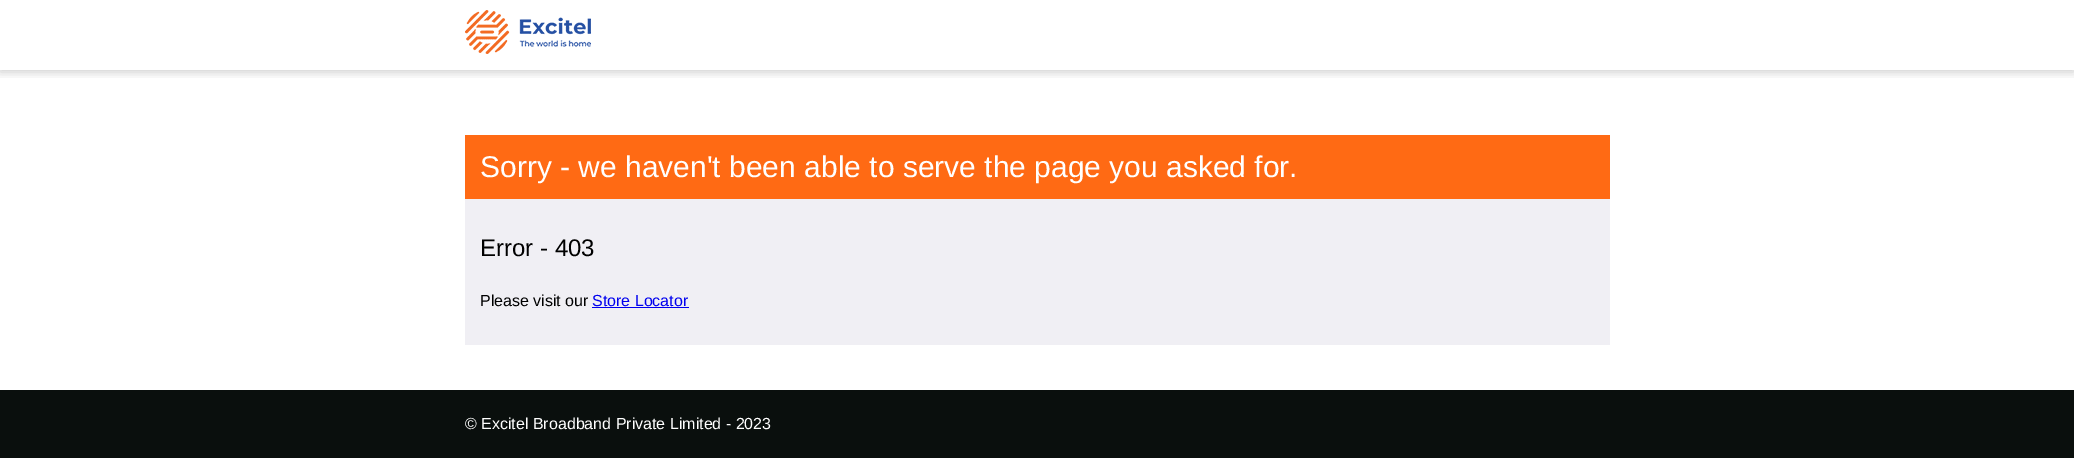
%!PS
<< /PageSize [2074 458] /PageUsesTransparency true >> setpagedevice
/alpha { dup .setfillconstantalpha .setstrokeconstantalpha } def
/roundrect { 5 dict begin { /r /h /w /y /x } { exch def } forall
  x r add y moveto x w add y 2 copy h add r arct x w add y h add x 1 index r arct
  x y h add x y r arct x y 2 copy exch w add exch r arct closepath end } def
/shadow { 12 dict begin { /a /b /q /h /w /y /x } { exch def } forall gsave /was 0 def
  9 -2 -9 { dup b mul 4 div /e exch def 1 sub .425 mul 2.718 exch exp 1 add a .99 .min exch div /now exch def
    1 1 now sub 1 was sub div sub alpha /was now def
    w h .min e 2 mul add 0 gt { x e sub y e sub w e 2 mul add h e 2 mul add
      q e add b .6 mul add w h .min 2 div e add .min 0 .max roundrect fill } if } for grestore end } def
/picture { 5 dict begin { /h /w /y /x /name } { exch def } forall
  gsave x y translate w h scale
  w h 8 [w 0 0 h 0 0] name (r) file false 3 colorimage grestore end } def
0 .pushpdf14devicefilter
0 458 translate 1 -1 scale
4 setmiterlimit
1 setgray
0 0 2074 458 rectfill
gsave
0 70 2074 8 rectclip
0 setgray
0 2 2074 70 0 5 0.2 shadow
grestore
(img1.rgb) 465 10 126 44 picture
0.941 0.937 0.957 setrgbcolor
465 199 1145 146 rectfill
1 0.416 0.078 setrgbcolor
465 135 1145 64 rectfill
/LiberationSans-Regular [30 0 0 -30 0 0] selectfont
1 setgray
480 177 moveto (Sorry - we haven't been able to serve the page you asked for.) show
/LiberationSans-Regular [24 0 0 -24 0 0] selectfont
0 setgray
480 256 moveto (Error - 403) show
/LiberationSans-Regular [16 0 0 -16 0 0] selectfont
480 306 moveto (Please visit our) show
0 0 0.933 setrgbcolor
592 306 moveto (Store Locator) show
592 307 97 1 rectfill
0.039 0.059 0.051 setrgbcolor
0 390 2074 68 rectfill
1 setgray
465 429 moveto (© Excitel Broadband Private Limited - 2023) show
.poppdf14devicefilter showpage
